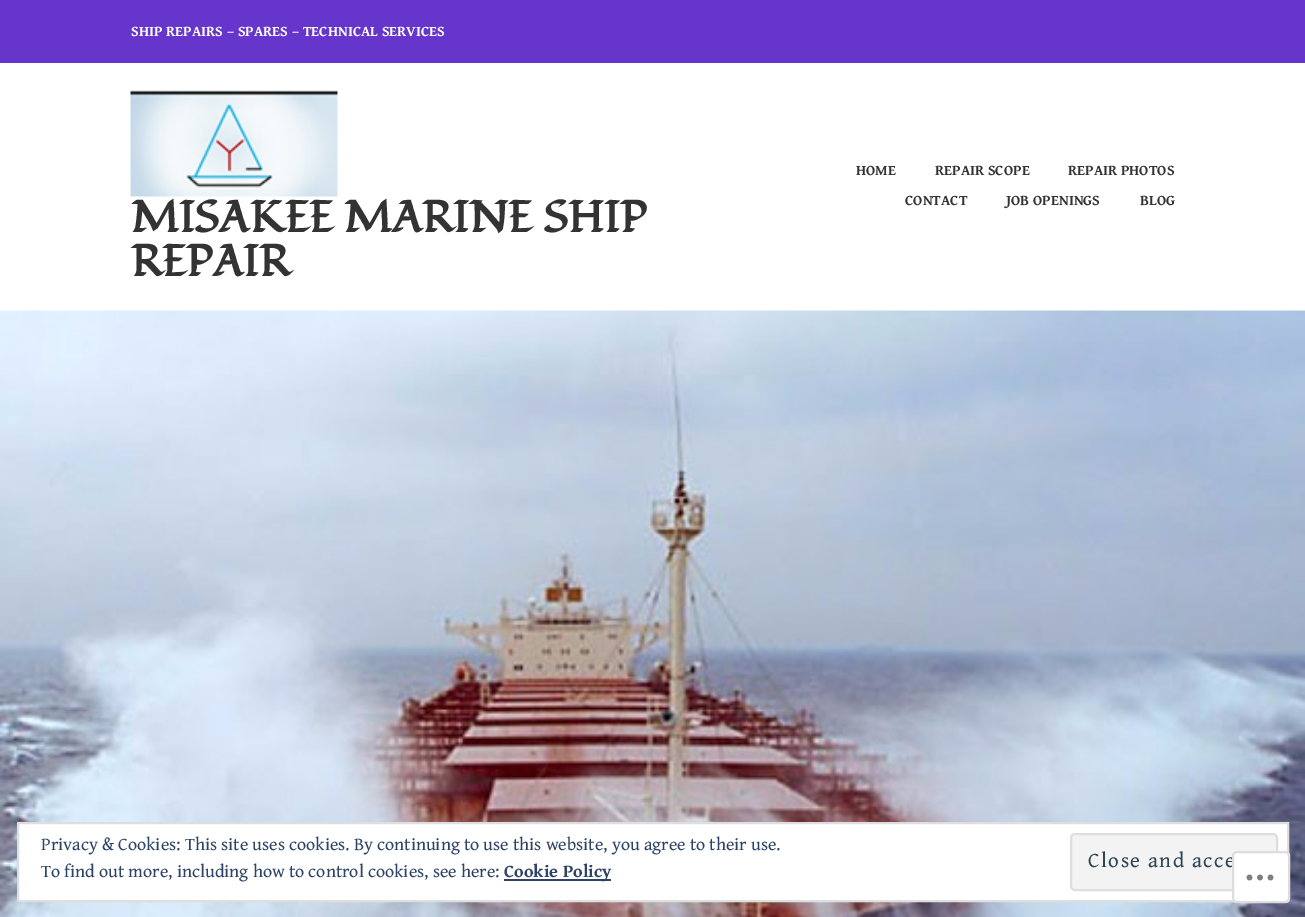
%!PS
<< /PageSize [1305 917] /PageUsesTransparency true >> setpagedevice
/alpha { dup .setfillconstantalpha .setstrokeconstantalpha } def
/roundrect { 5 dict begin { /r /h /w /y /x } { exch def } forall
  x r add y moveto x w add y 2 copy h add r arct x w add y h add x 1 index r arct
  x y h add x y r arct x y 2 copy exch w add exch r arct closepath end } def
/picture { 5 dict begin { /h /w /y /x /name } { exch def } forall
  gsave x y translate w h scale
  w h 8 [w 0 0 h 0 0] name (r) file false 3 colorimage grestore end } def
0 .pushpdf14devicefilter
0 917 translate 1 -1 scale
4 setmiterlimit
1 setgray
0 0 1305 917 rectfill
0.4 0.212 0.8 setrgbcolor
0 0 1305 63 rectfill
/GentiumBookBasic-Bold [14.7 0 0 -14.7 0 0] selectfont
1 setgray
131 36 moveto (SHIP REPAIRS – SPARES – TECHNICAL SERVICES) show
0.2 setgray
856 175 moveto (HOME) show
935 175 moveto (REPAIR SCOPE) show
1068 175 moveto (REPAIR PHOTOS) show
905 205 moveto (CONTACT) show
1006 205 moveto (JOB OPENINGS) show
1140 205 moveto (BLOG) show
(img1.rgb) 130 90 208 107 picture
/Fondamento-Bold [44.1 0 0 -44.1 0 0] selectfont
131 232 moveto (MISAKEE MARINE SHIP) show
131 276 moveto (REPAIR) show
(img2.rgb) 0 310 1305 607 picture
1 setgray
newpath 18 823 moveto 1288 823 lineto 1288 901 lineto 18 901 lineto closepath gsave fill grestore
0.871 setgray
2 setlinewidth
stroke
/GentiumBookBasic-Regular [18 0 0 -18 0 0] selectfont
0.18 0.267 0.404 setrgbcolor
41 850 moveto (Privacy & Cookies: This site uses cookies. By continuing to use this website, you agree to their use.) show
0.953 setgray
1071 834 206 56 4 roundrect gsave fill grestore
0.871 setgray
stroke
/GentiumBookBasic-Regular [21 0 0 -21 0 0] selectfont
0.18 0.267 0.325 setrgbcolor
1088 867 moveto 1.5 0 (Close and acce) ashow
/GentiumBookBasic-Regular [18 0 0 -18 0 0] selectfont
0.18 0.267 0.404 setrgbcolor
41 877 moveto (To find out more, including how to control cookies, see here:) show
504 879 107 2 rectfill
/GentiumBookBasic-Bold [18 0 0 -18 0 0] selectfont
504 877 moveto (Cookie Policy) show
0.98 alpha
1 setgray
1232 851 58 52 5 roundrect fill
0.863 0.863 0.871 setrgbcolor
1233 852 56 50 4 roundrect stroke
1 alpha
(img3.rgb) 1246 874 28 7 picture
.poppdf14devicefilter showpage
